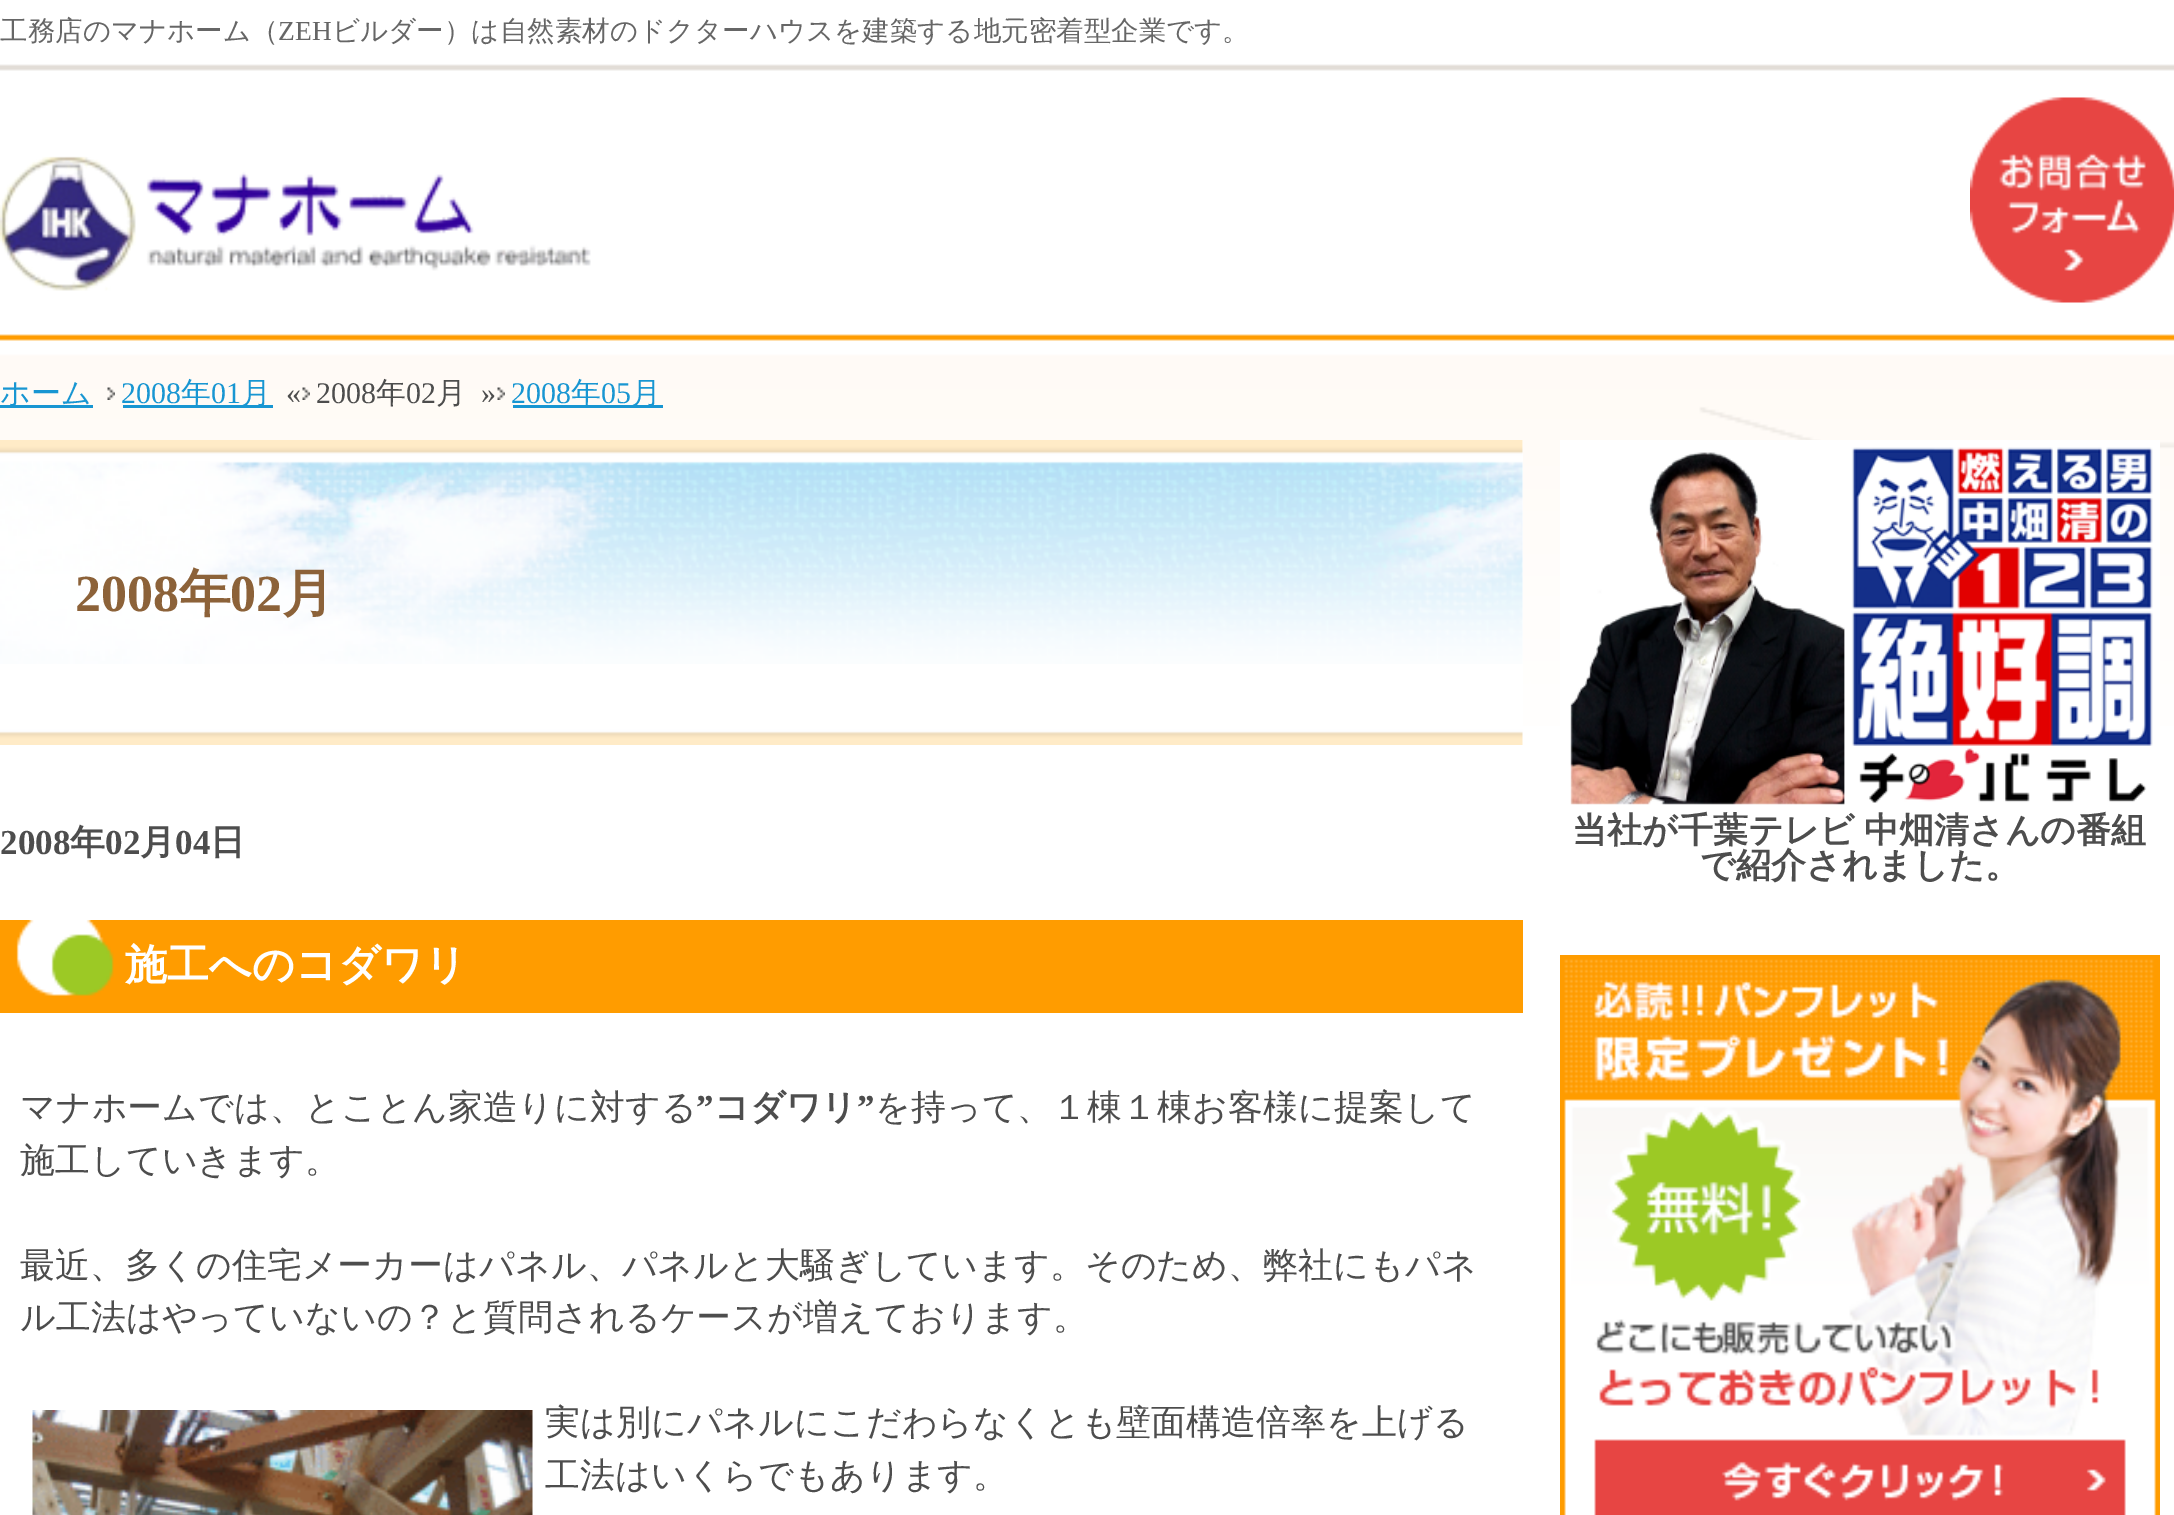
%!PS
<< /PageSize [2174 1515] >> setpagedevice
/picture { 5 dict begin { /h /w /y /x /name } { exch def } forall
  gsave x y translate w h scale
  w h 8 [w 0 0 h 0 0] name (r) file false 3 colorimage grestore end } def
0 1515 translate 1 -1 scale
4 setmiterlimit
1 setgray
0 0 2174 1515 rectfill
(img1.rgb) 0 64 2174 662 picture
0 440 1523 285 rectfill
/WenQuanYiZenHei-Medium [27.5 0 0 -27.5 0 0] selectfont
0.4 setgray
0 40 moveto (工務店のマナホーム（) show
/LiberationSerif-Regular [27.5 0 0 -27.5 0 0] selectfont
278 40 moveto (ZEH) show
/WenQuanYiZenHei-Medium [27.5 0 0 -27.5 0 0] selectfont
332 40 moveto (ビルダー）は自然素材のドクターハウスを建築する地元密着型企業です。) show
(img2.rgb) 0 156 591 135 picture
(img3.rgb) 0 440 1523 224 picture
/LiberationSerif-Bold [52 0 0 -52 0 0] selectfont
0.549 0.384 0.224 setrgbcolor
75 611 moveto (2008) show
/WenQuanYiZenHei-Bold [52 0 0 -52 0 0] selectfont
179 611 moveto (年) show
/LiberationSerif-Bold [52 0 0 -52 0 0] selectfont
230 611 moveto (02) show
/WenQuanYiZenHei-Bold [52 0 0 -52 0 0] selectfont
282 611 moveto (月) show
(img4.rgb) 1970 97 204 206 picture
(img5.rgb) 0 725 1523 20 picture
/LiberationSerif-Bold [35 0 0 -35 0 0] selectfont
0.302 setgray
0 854 moveto (2008) show
/WenQuanYiZenHei-Bold [35 0 0 -35 0 0] selectfont
70 854 moveto (年) show
/LiberationSerif-Bold [35 0 0 -35 0 0] selectfont
105 854 moveto (02) show
/WenQuanYiZenHei-Bold [35 0 0 -35 0 0] selectfont
140 854 moveto (月) show
/LiberationSerif-Bold [35 0 0 -35 0 0] selectfont
175 854 moveto (04) show
/WenQuanYiZenHei-Bold [35 0 0 -35 0 0] selectfont
210 854 moveto (日) show
1 0.612 0 setrgbcolor
0 920 1523 93 rectfill
(img6.rgb) 16 920 98 76 picture
/WenQuanYiZenHei-Bold [42 0 0 -42 0 0] selectfont
1 setgray
125 979 moveto (施工へのコダワリ) show
/WenQuanYiZenHei-Medium [35 0 0 -35 0 0] selectfont
0.302 setgray
20 1119 moveto (マナホームでは、とことん家造りに対する) show
/LiberationSerif-Bold [35 0 0 -35 0 0] selectfont
696 1119 moveto (”) show
/WenQuanYiZenHei-Bold [35 0 0 -35 0 0] selectfont
714 1119 moveto (コダワリ) show
/LiberationSerif-Bold [35 0 0 -35 0 0] selectfont
857 1119 moveto (”) show
/WenQuanYiZenHei-Medium [35 0 0 -35 0 0] selectfont
875 1119 moveto (を持って、１棟１棟お客様に提案して) show
20 1172 moveto (施工していきます。) show
20 1277 moveto (最近、多くの住宅メーカーはパネル、パネルと大騒ぎしています。そのため、弊社にもパネ) show
20 1329 moveto (ル工法はやっていないの？と質問されるケースが増えております。) show
(img7.rgb) 32 1410 501 105 picture
545 1434 moveto (実は別にパネルにこだわらなくとも壁面構造倍率を上げる) show
545 1487 moveto (工法はいくらでもあります。) show
(img8.rgb) 1560 440 600 365 picture
/WenQuanYiZenHei-Bold [35 0 0 -35 0 0] selectfont
1572 842 moveto -2 0 32 (当社が千葉テレビ 中畑清さんの番組) widthshow
1700 877 moveto (で紹介されました。) show
(img9.rgb) 1560 955 600 560 picture
0.094 0.588 0.824 setrgbcolor
0 405 93 3 rectfill
/WenQuanYiZenHei-Medium [30 0 0 -30 0 0] selectfont
0 403 moveto (ホーム) show
(img10.rgb) 107 387 8 13 picture
/LiberationSerif-Regular [30 0 0 -30 0 0] selectfont
121 403 moveto (2008) show
123 405 150 3 rectfill
/WenQuanYiZenHei-Medium [30 0 0 -30 0 0] selectfont
181 403 moveto (年) show
/LiberationSerif-Regular [30 0 0 -30 0 0] selectfont
211 403 moveto (01) show
/WenQuanYiZenHei-Medium [30 0 0 -30 0 0] selectfont
241 403 moveto (月) show
/LiberationSerif-Regular [30 0 0 -30 0 0] selectfont
0.302 setgray
286 403 moveto («) show
(img10.rgb) 302 387 8 13 picture
316 403 moveto (2008) show
/WenQuanYiZenHei-Medium [30 0 0 -30 0 0] selectfont
376 403 moveto (年) show
/LiberationSerif-Regular [30 0 0 -30 0 0] selectfont
406 403 moveto (02) show
/WenQuanYiZenHei-Medium [30 0 0 -30 0 0] selectfont
436 403 moveto (月) show
/LiberationSerif-Regular [30 0 0 -30 0 0] selectfont
481 403 moveto (») show
(img10.rgb) 497 387 8 13 picture
0.094 0.588 0.824 setrgbcolor
511 403 moveto (2008) show
513 405 150 3 rectfill
/WenQuanYiZenHei-Medium [30 0 0 -30 0 0] selectfont
571 403 moveto (年) show
/LiberationSerif-Regular [30 0 0 -30 0 0] selectfont
601 403 moveto (05) show
/WenQuanYiZenHei-Medium [30 0 0 -30 0 0] selectfont
631 403 moveto (月) show
showpage
